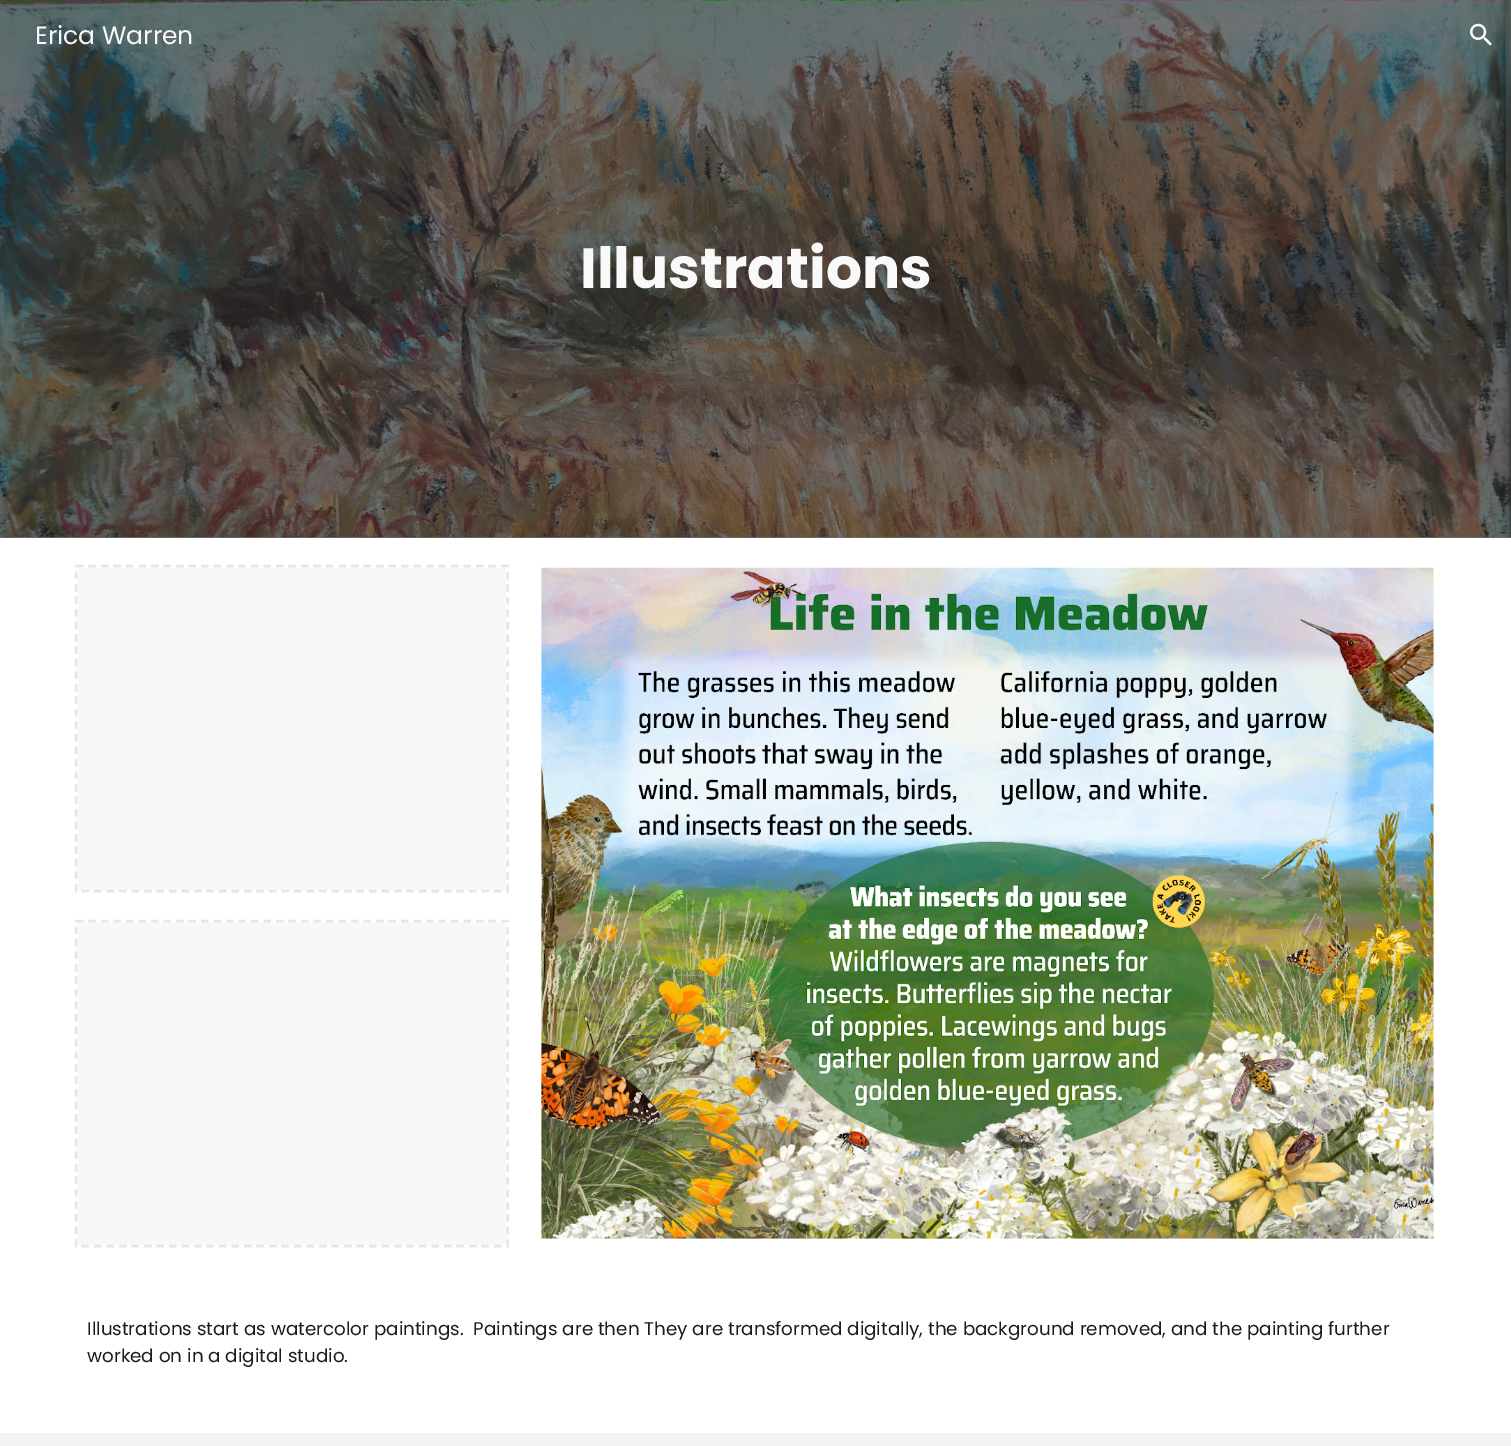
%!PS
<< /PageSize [1511 1446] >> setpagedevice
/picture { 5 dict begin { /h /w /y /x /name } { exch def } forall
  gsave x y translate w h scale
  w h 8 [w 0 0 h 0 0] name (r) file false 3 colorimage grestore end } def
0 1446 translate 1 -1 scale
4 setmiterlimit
1 setgray
0 0 1511 1446 rectfill
0.408 0.455 0.424 setrgbcolor
0 537 1511 1 rectfill
(img2.rgb) 0 0 1511 538 picture
/Poppins-Regular [25 0 0 -25 0 0] selectfont
0.976 setgray
35 44 moveto (Erica Warren) show
(img1.rgb) 1470 23 22 23 picture
/Poppins-Bold [56.75 0 0 -56.75 0 0] selectfont
580 288 moveto (Illustrations) show
0.973 setgray
78 568 428 322 rectfill
0.902 setgray
2.5 setlinewidth
[7.5 5] 0 setdash
newpath 76 566 moveto 507.5 566 lineto 507.5 891 lineto 76 891 lineto closepath stroke
0.973 setgray
78 923 428 322 rectfill
0.902 setgray
newpath 76 921 moveto 507.5 921 lineto 507.5 1246 lineto 76 1246 lineto closepath stroke
(img3.rgb) 541 567 893 672 picture
/Poppins-Regular [18.33 0 0 -18.33 0 0] selectfont
0.11 setgray
87 1335 moveto (Illustrations start as watercolor paintings.  Paintings are then They are transformed digitally, the background removed, and the painting further) show
87 1362 moveto (worked on in a digital studio.) show
0.953 setgray
0 1433 1511 13 rectfill
showpage
